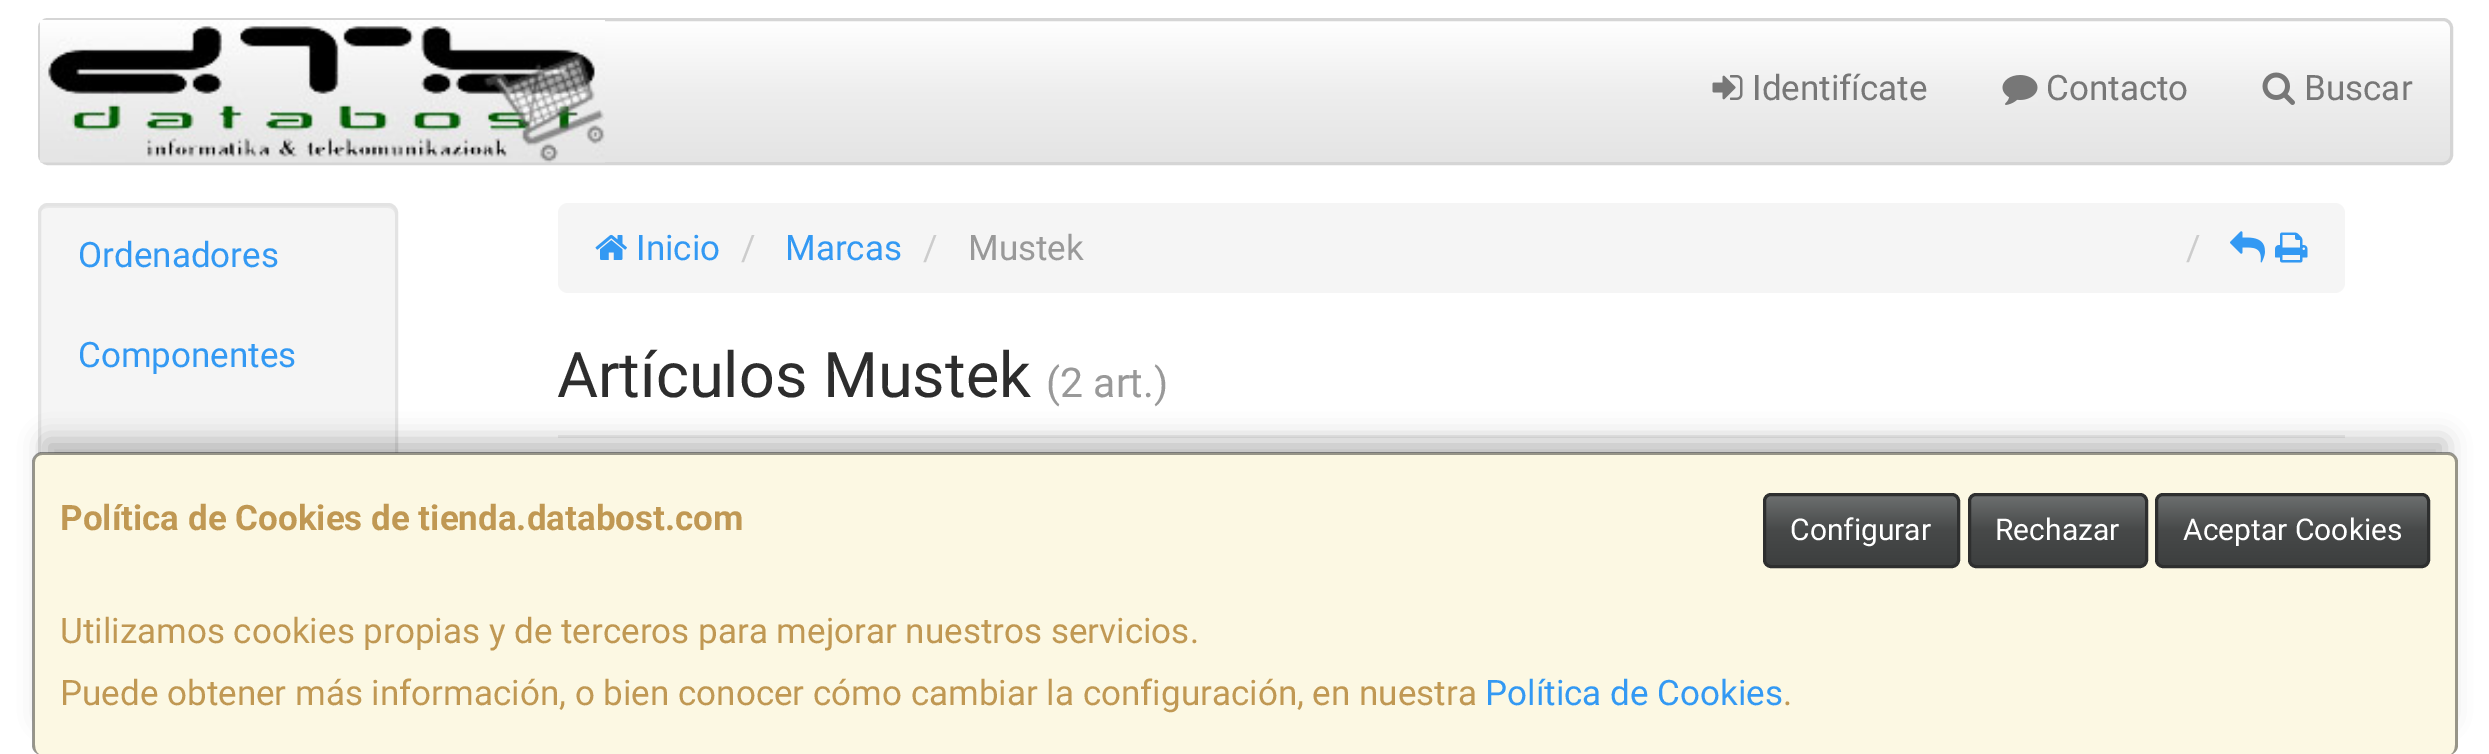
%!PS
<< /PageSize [2489 754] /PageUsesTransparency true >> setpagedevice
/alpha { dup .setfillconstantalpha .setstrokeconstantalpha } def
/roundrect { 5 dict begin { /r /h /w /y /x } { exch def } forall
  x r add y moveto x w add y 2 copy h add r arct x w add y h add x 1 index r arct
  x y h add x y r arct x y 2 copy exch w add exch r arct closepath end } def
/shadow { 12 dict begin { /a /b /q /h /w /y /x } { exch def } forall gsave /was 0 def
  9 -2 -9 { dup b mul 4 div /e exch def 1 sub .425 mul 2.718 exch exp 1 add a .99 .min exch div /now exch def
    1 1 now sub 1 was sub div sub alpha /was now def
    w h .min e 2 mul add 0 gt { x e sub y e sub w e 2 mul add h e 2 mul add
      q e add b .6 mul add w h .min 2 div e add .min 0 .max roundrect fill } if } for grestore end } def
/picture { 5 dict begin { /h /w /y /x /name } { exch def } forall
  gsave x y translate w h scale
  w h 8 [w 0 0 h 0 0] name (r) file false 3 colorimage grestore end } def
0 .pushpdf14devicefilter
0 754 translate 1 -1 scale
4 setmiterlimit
1 setgray
0 0 2489 754 rectfill
gsave
38 18 2415 147 10 roundrect clip newpath
gsave newpath 41 20 moveto 2450 20 lineto 2450 163 lineto 41 163 lineto closepath clip newpath
<< /ShadingType 2 /ColorSpace /DeviceRGB /Coords [1245 20 1245 163] /Extend [true true] /Function << /FunctionType 3 /Domain [0 1] /Functions [<< /FunctionType 2 /Domain [0 1] /C0 [1 1 1] /C1 [0.933 0.933 0.933] /N 1 >> << /FunctionType 2 /Domain [0 1] /C0 [0.933 0.933 0.933] /C1 [0.894 0.894 0.894] /N 1 >>] /Bounds [0.5] /Encode [0 1 0 1] >> >> shfill grestore
grestore
0.835 setgray
3 setlinewidth
39.5 19.5 2412 144 8.5 roundrect stroke
(img1.rgb) 40 20 565 143 picture
(img2.rgb) 1712 75 31 25 picture
/Roboto-Regular [35 0 0 -35 0 0] selectfont
0.467 setgray
1752 100 moveto (Identifícate) show
(img3.rgb) 2002 75 36 30 picture
2046 100 moveto (Contacto) show
(img4.rgb) 2262 72 33 33 picture
2304 100 moveto (Buscar) show
0.961 setgray
38 203 360 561 10 roundrect fill
0.914 setgray
newpath 48 208 moveto 388 208 lineto 392 208 395 211 395 215 curveto 395 213 lineto 395 209 391 205 387 205 curveto 48 205 lineto 44 205 40 209 40 213 curveto 40 215 lineto 40 211 43 208 48 208 curveto closepath fill
0.89 setgray
39.5 204.5 357 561 8.5 roundrect stroke
0.2 0.6 0.953 setrgbcolor
78 267 moveto (Ordenadores) show
78 367 moveto (Componentes) show
0.961 setgray
558 203 1787 90 10 roundrect fill
(img5.rgb) 595 234 32 26 picture
0.2 0.6 0.953 setrgbcolor
636 260 moveto (Inicio) show
0.8 setgray
741 260 moveto (/) show
0.2 0.6 0.953 setrgbcolor
785 260 moveto (Marcas) show
0.8 setgray
923 260 moveto (/) show
0.6 setgray
968 260 moveto (Mustek) show
0.8 setgray
2186 260 moveto (/) show
(img6.rgb) 2230 231 35 32 picture
(img7.rgb) 2275 232 33 31 picture
0.933 setgray
558 435 1787 3 rectfill
/Roboto-Regular [63 0 0 -63 0 0] selectfont
0.176 setgray
557 397 moveto (Artículos Mustek) show
/Roboto-Regular [41 0 0 -41 0 0] selectfont
0.6 setgray
1046 397 moveto (\(2 art.\)) show
0 setgray
45 440 2400 278 0 12.5 0.25 shadow
0.988 0.973 0.89 setrgbcolor
33 453 2425 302 10 roundrect fill
0.4 alpha
0 setgray
newpath 42 452 moveto 2448 452 lineto 2453 452 2458 457 2458 462 curveto 2458 745 lineto 2458 751 2453 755 2448 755 curveto 42 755 lineto 37 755 32 751 32 745 curveto 32 462 lineto 32 457 37 452 42 452 curveto closepath 42 455 moveto 2448 455 lineto 2452 455 2455 458 2455 462 curveto 2455 745 lineto 2455 751 2452 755 2448 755 curveto 42 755 lineto 38 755 35 751 35 745 curveto 35 462 lineto 35 458 38 455 42 455 curveto closepath eofill
/Roboto-Bold [35 0 0 -35 0 0] selectfont
1 alpha
0.753 0.596 0.325 setrgbcolor
60 530 moveto (Política de Cookies de tienda.databost.com) show
gsave newpath 1765 495 moveto 1958 495 lineto 1958 565 lineto 1765 565 lineto closepath clip newpath
<< /ShadingType 2 /ColorSpace /DeviceRGB /Coords [1861 495 1861 565] /Extend [true true] /Function << /FunctionType 3 /Domain [0 1] /Functions [<< /FunctionType 2 /Domain [0 1] /C0 [0.427 0.439 0.439] /C1 [0.278 0.286 0.286] /N 1 >> << /FunctionType 2 /Domain [0 1] /C0 [0.278 0.286 0.286] /C1 [0.239 0.247 0.247] /N 1 >>] /Bounds [0.5] /Encode [0 1 0 1] >> >> shfill grestore
0.18 0.184 0.184 setrgbcolor
1764.5 494.5 194 72 6.5 roundrect stroke
/Roboto-Regular [30 0 0 -30 0 0] selectfont
1 setgray
1790 540 moveto (Configurar) show
gsave newpath 1970 495 moveto 2145 495 lineto 2145 565 lineto 1970 565 lineto closepath clip newpath
<< /ShadingType 2 /ColorSpace /DeviceRGB /Coords [2058 495 2058 565] /Extend [true true] /Function << /FunctionType 3 /Domain [0 1] /Functions [<< /FunctionType 2 /Domain [0 1] /C0 [0.427 0.439 0.439] /C1 [0.278 0.286 0.286] /N 1 >> << /FunctionType 2 /Domain [0 1] /C0 [0.278 0.286 0.286] /C1 [0.239 0.247 0.247] /N 1 >>] /Bounds [0.5] /Encode [0 1 0 1] >> >> shfill grestore
0.18 0.184 0.184 setrgbcolor
1969.5 494.5 177 72 6.5 roundrect stroke
1 setgray
1995 540 moveto (Rechazar) show
gsave newpath 2158 495 moveto 2428 495 lineto 2428 565 lineto 2158 565 lineto closepath clip newpath
<< /ShadingType 2 /ColorSpace /DeviceRGB /Coords [2293 495 2293 565] /Extend [true true] /Function << /FunctionType 3 /Domain [0 1] /Functions [<< /FunctionType 2 /Domain [0 1] /C0 [0.427 0.439 0.439] /C1 [0.278 0.286 0.286] /N 1 >> << /FunctionType 2 /Domain [0 1] /C0 [0.278 0.286 0.286] /C1 [0.239 0.247 0.247] /N 1 >>] /Bounds [0.5] /Encode [0 1 0 1] >> >> shfill grestore
0.18 0.184 0.184 setrgbcolor
2156.5 494.5 272 72 6.5 roundrect stroke
1 setgray
2183 540 moveto (Aceptar Cookies) show
/Roboto-Regular [35 0 0 -35 0 0] selectfont
0.753 0.596 0.325 setrgbcolor
60 643 moveto (Utilizamos cookies propias y de terceros para mejorar nuestros servicios.) show
60 705 moveto (Puede obtener más información, o bien conocer cómo cambiar la configuración, en nuestra) show
0.2 0.6 0.953 setrgbcolor
1485 705 moveto (Política de Cookies) show
0.753 0.596 0.325 setrgbcolor
1783 705 moveto (.) show
.poppdf14devicefilter showpage
